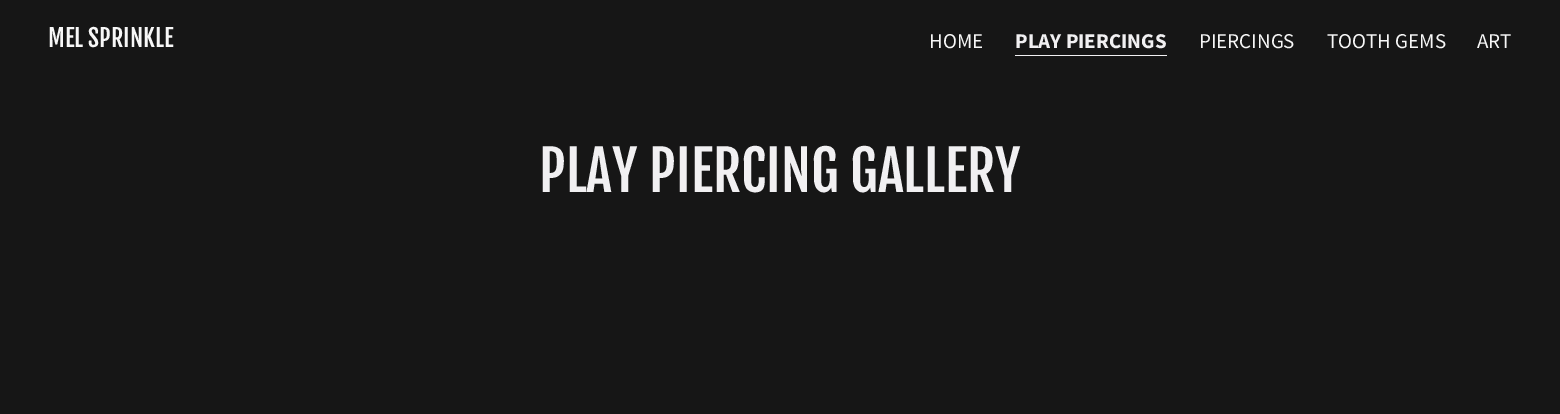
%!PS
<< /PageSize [1560 414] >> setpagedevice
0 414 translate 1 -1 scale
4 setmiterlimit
0.086 setgray
0 0 1560 414 rectfill
/FjallaOne-Regular [24 0 0 -24 0 0] selectfont
0.969 setgray
48 47 moveto (MEL SPRINKLE) show
/SourceSansPro-Regular [21 0 0 -21 0 0] selectfont
929 48 moveto (HOME) show
0.945 0.941 0.949 setrgbcolor
1015 55 152 1 rectfill
/SourceSansPro-Bold [21 0 0 -21 0 0] selectfont
1015 48 moveto (PLAY PIERCINGS) show
/SourceSansPro-Regular [21 0 0 -21 0 0] selectfont
0.969 setgray
1199 48 moveto (PIERCINGS) show
1327 48 moveto (TOOTH GEMS) show
1477 48 moveto (ART) show
/FjallaOne-Regular [55 0 0 -55 0 0] selectfont
0.945 0.941 0.949 setrgbcolor
539 192 moveto (PLAY PIERCING GALLERY) show
showpage
